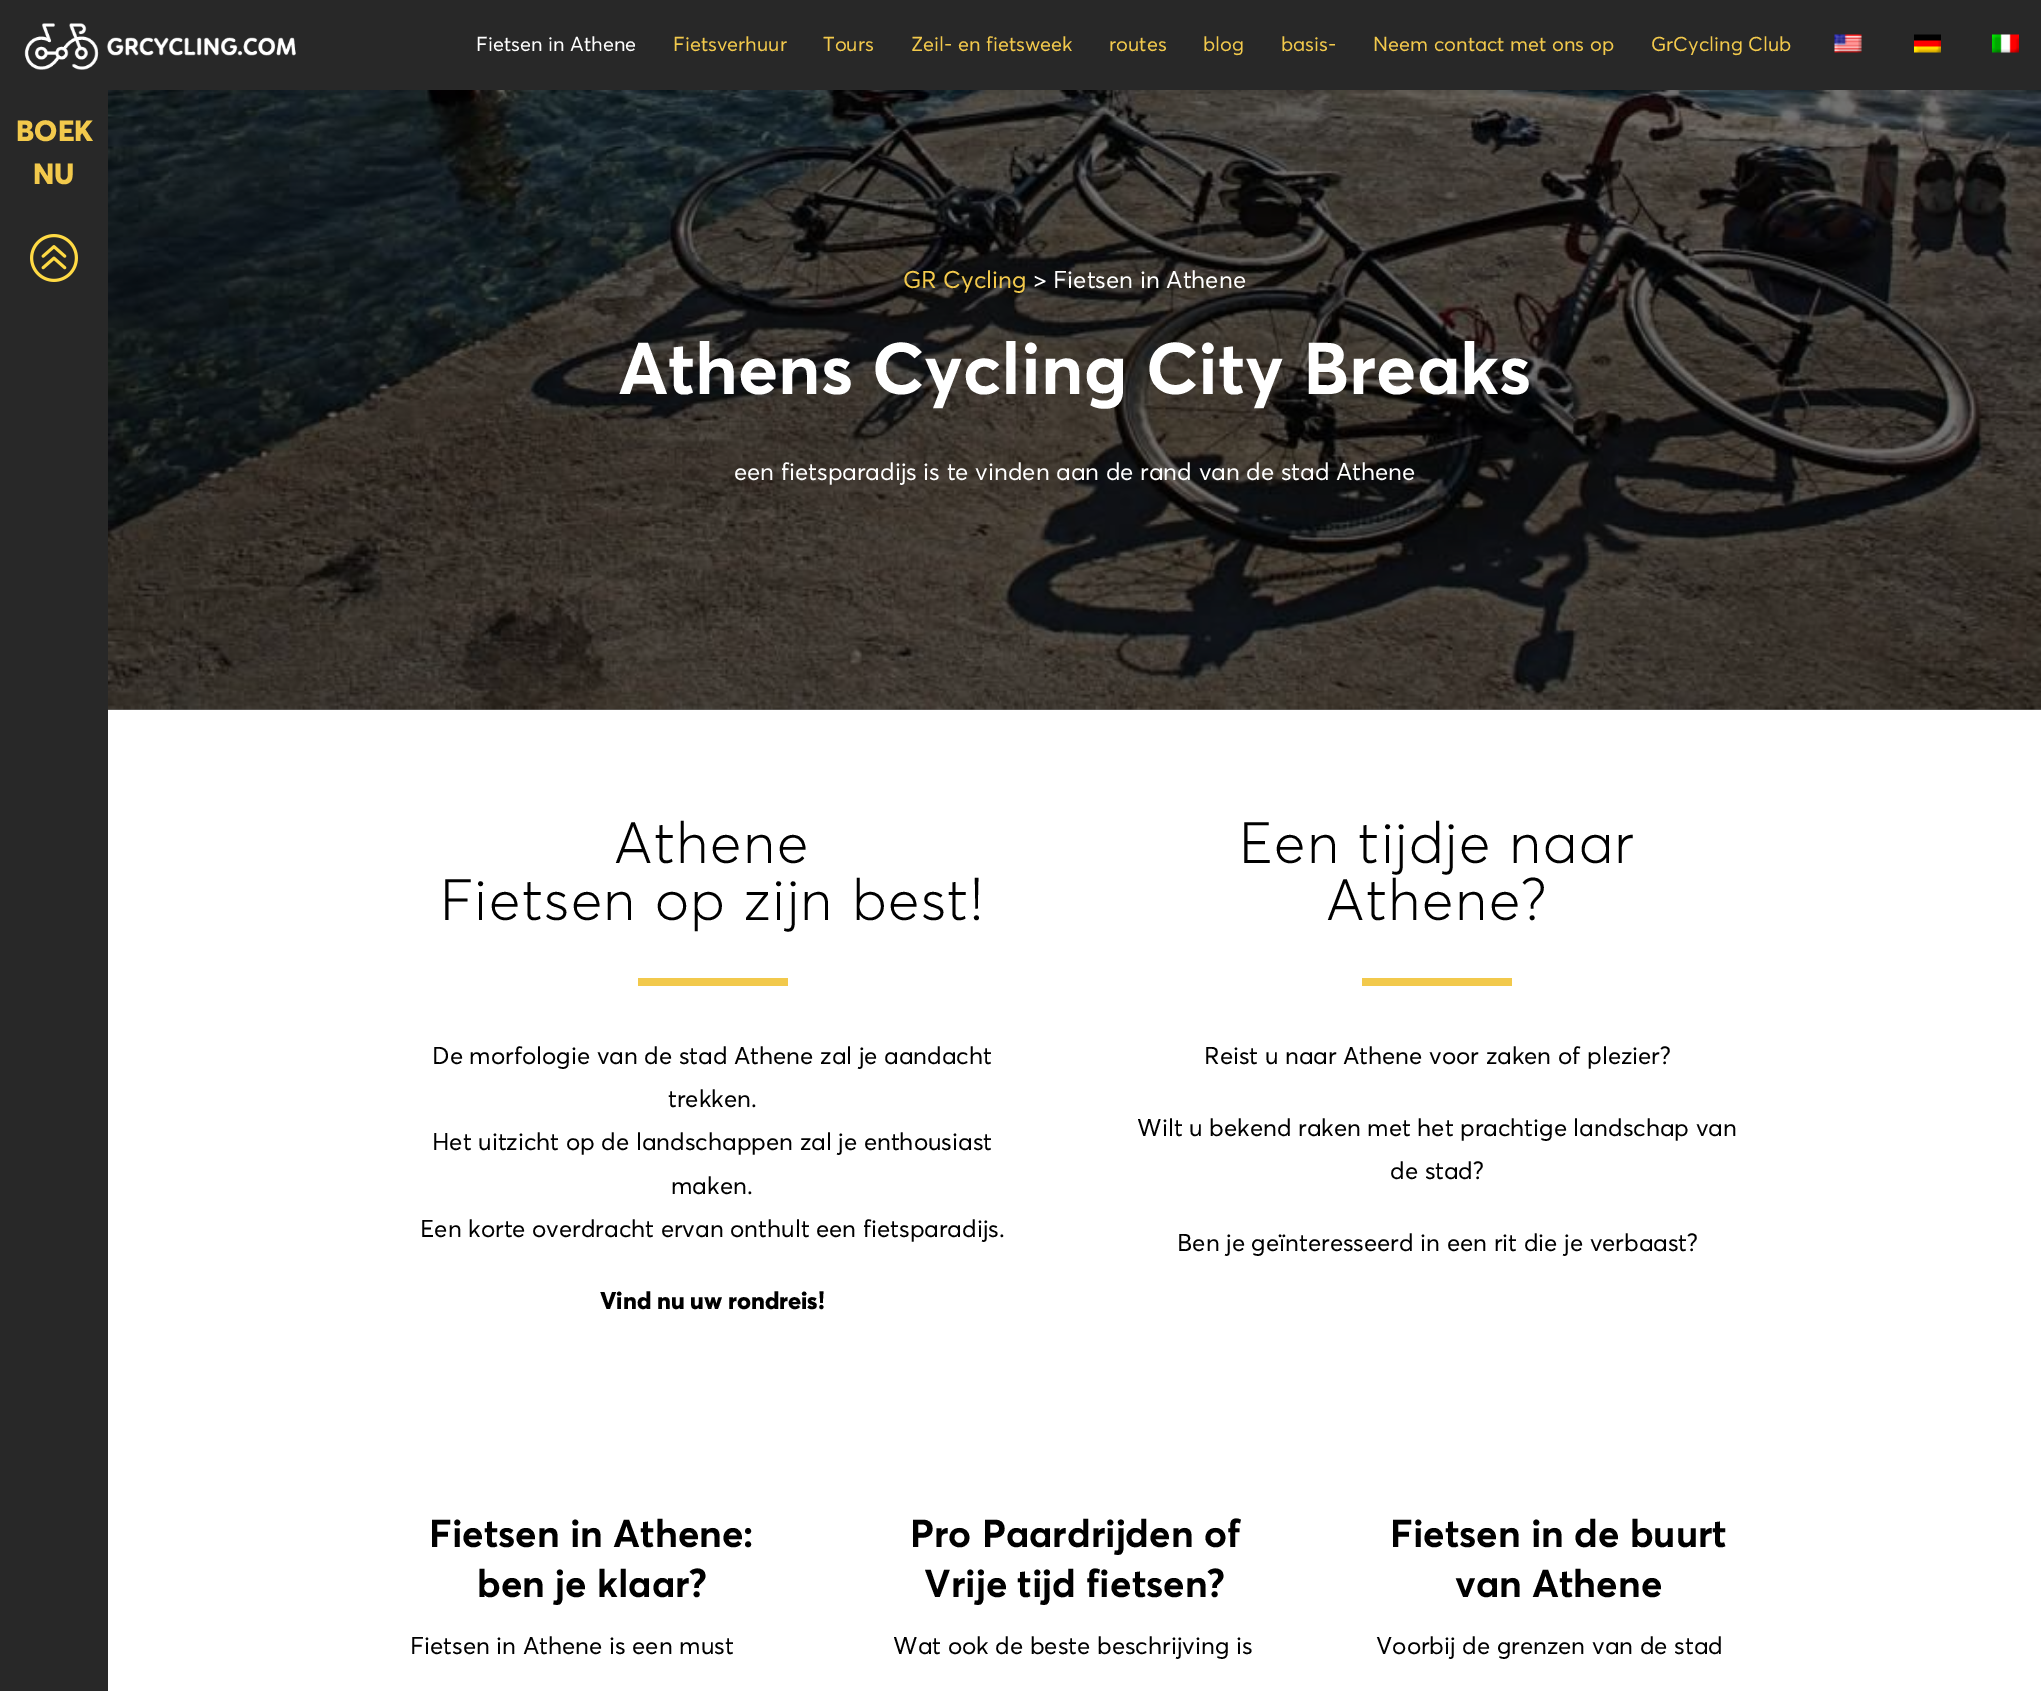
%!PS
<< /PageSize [2041 1691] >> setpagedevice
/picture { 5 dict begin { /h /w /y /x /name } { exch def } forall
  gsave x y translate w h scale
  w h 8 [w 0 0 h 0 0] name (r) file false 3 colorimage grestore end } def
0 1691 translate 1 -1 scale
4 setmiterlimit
0.157 setgray
0 0 2041 1691 rectfill
(img1.rgb) 24 23 272 47 picture
/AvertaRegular-Regular [20 0 0 -20 0 0] selectfont
1 setgray
476 51 moveto (Fietsen in Athene) show
0.949 0.788 0.298 setrgbcolor
673 51 moveto (Fietsverhuur) show
823 51 moveto (Tours) show
911 51 moveto (Zeil- en fietsweek) show
1109 51 moveto (routes) show
1203 51 moveto (blog) show
1281 51 moveto (basis-) show
1373 51 moveto (Neem contact met ons op) show
1651 51 moveto (GrCycling Club) show
(img2.rgb) 1834 34 28 19 picture
(img3.rgb) 1914 34 27 19 picture
(img4.rgb) 1992 34 27 19 picture
/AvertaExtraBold-ExtraBold [29 0 0 -29 0 0] selectfont
16 141 moveto (BOEK) show
33 184 moveto (NU) show
(img5.rgb) 30 234 48 48 picture
1 setgray
108 710 1933 981 rectfill
0.451 setgray
108 709 1933 1 rectfill
(img6.rgb) 108 90 1933 620 picture
/AvertaRegular-Regular [24 0 0 -24 0 0] selectfont
0.949 0.788 0.298 setrgbcolor
903 288 moveto (GR Cycling) show
1 setgray
1033 288 moveto (> Fietsen in Athene) show
/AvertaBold-Bold [72 0 0 -72 0 0] selectfont
618 394 moveto (Athens Cycling City Breaks) show
/AvertaRegular-Regular [24 0 0 -24 0 0] selectfont
734 480 moveto (een fietsparadijs is te vinden aan de rand van de stad Athene) show
/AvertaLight-Light [57.5 0 0 -57.5 0 0] selectfont
0 setgray
614 863 moveto 1.5 0 (Athene) ashow
440 920 moveto 1.5 0 (Fietsen op zijn best!) ashow
0.949 0.788 0.298 setrgbcolor
638 978 150 8 rectfill
/AvertaRegular-Regular [24 0 0 -24 0 0] selectfont
0 setgray
432 1064 moveto (De morfologie van de stad Athene zal je aandacht) show
668 1107 moveto (trekken.) show
432 1150 moveto (Het uitzicht op de landschappen zal je enthousiast) show
671 1194 moveto (maken.) show
420 1237 moveto (Een korte overdracht ervan onthult een fietsparadijs.) show
/AvertaExtraBold-ExtraBold [24 0 0 -24 0 0] selectfont
600 1309 moveto (Vind nu uw rondreis!) show
/AvertaLight-Light [57.5 0 0 -57.5 0 0] selectfont
1239 863 moveto 1.5 0 (Een tijdje naar) ashow
1326 920 moveto 1.5 0 (Athene?) ashow
0.949 0.788 0.298 setrgbcolor
1362 978 150 8 rectfill
/AvertaRegular-Regular [24 0 0 -24 0 0] selectfont
0 setgray
1204 1064 moveto (Reist u naar Athene voor zaken of plezier?) show
1137 1136 moveto (Wilt u bekend raken met het prachtige landschap van) show
1390 1179 moveto (de stad?) show
1177 1251 moveto (Ben je geïnteresseerd in een rit die je verbaast?) show
/AvertaBold-Bold [38.5 0 0 -38.5 0 0] selectfont
429 1547 moveto (Fietsen in Athene:) show
477 1597 moveto (ben je klaar?) show
/AvertaRegular-Regular [24 0 0 -24 0 0] selectfont
410 1654 moveto (Fietsen in Athene is een must) show
/AvertaBold-Bold [38.5 0 0 -38.5 0 0] selectfont
910 1547 moveto (Pro Paardrijden of) show
924 1597 moveto (Vrije tijd fietsen?) show
/AvertaRegular-Regular [24 0 0 -24 0 0] selectfont
893 1654 moveto (Wat ook de beste beschrijving is) show
/AvertaBold-Bold [38.5 0 0 -38.5 0 0] selectfont
1390 1547 moveto (Fietsen in de buurt) show
1455 1597 moveto (van Athene) show
/AvertaRegular-Regular [24 0 0 -24 0 0] selectfont
1376 1654 moveto (Voorbij de grenzen van de stad) show
showpage
